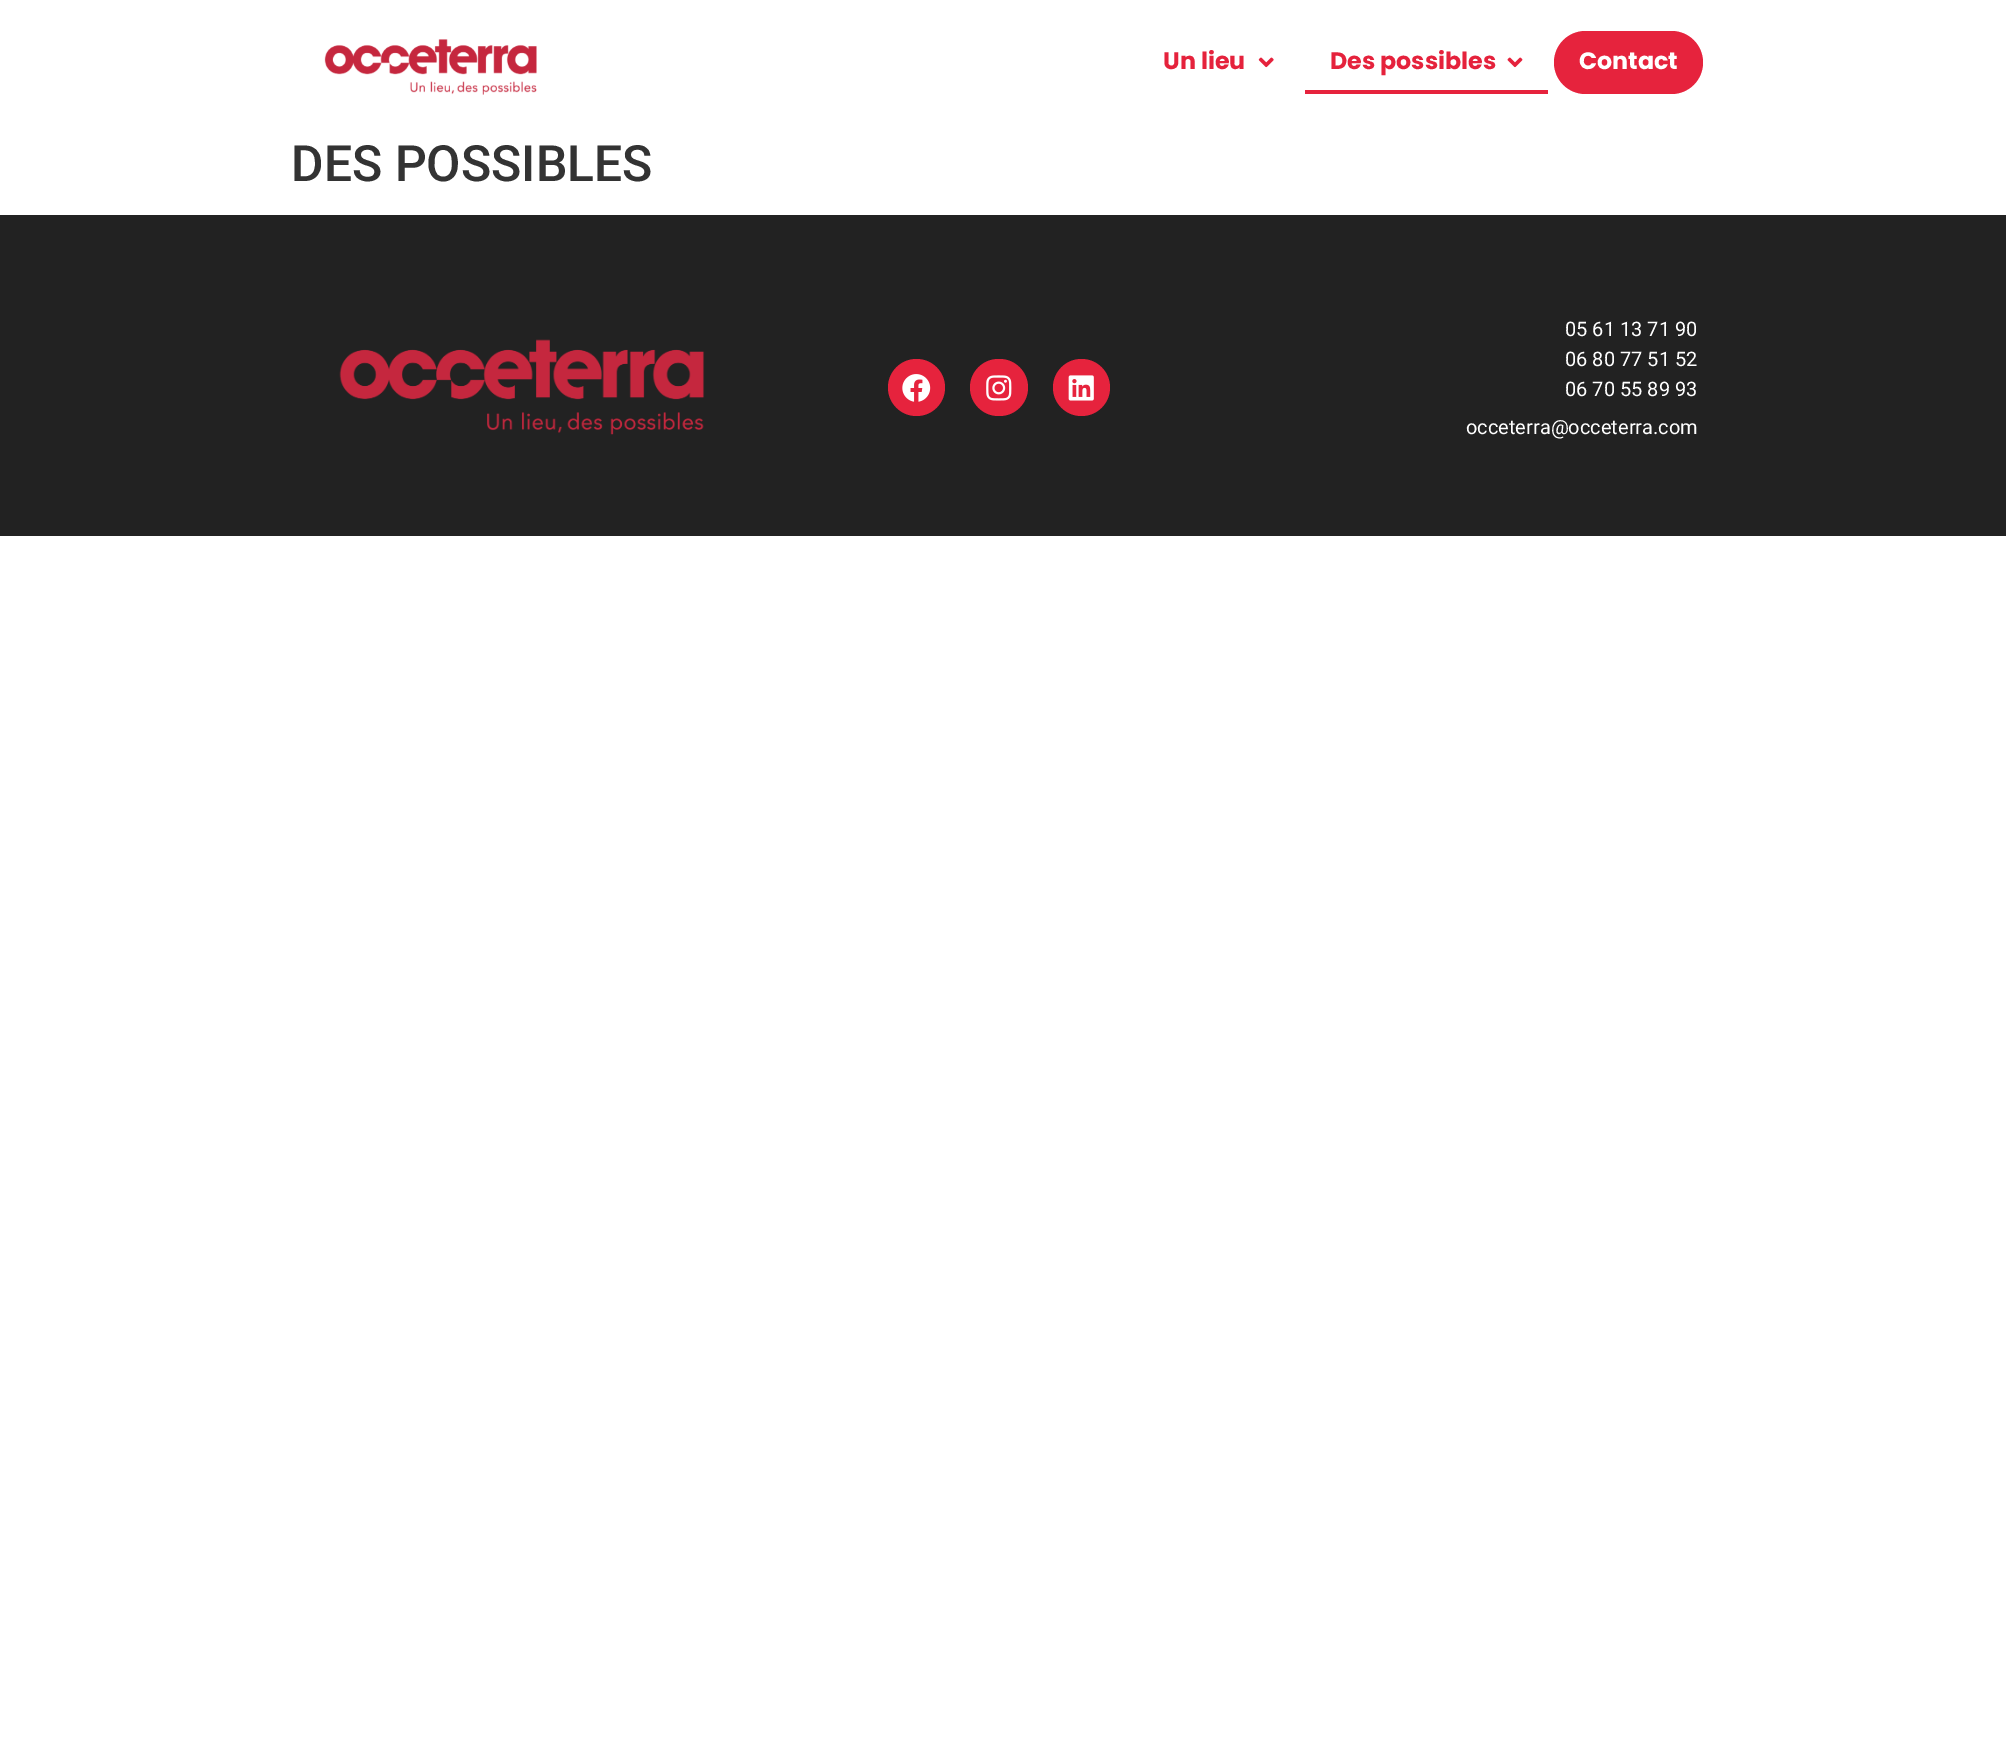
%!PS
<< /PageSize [2006 1761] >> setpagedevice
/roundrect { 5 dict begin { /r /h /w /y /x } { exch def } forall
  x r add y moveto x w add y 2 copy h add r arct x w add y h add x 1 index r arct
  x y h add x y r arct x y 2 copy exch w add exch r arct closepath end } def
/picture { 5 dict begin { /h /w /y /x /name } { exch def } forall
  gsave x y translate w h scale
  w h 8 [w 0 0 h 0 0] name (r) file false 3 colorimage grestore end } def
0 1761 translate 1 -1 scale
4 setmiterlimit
1 setgray
0 0 2006 1761 rectfill
(img1.rgb) 324 39 213 56 picture
/Poppins-Bold [23.75 0 0 -23.75 0 0] selectfont
0.898 0.133 0.235 setrgbcolor
1163 69 moveto (Un lieu) show
(img2.rgb) 1258 57 16 11 picture
1330 69 moveto (Des possibles) show
(img3.rgb) 1507 57 16 11 picture
0.902 0.137 0.239 setrgbcolor
1305 90 243 4 rectfill
1554 31 149 63 31.5 roundrect fill
1 setgray
1579 69 moveto (Contact) show
/Roboto-Medium [50 0 0 -50 0 0] selectfont
0.2 setgray
291 181 moveto (DES POSSIBLES) show
0.133 setgray
0 215 2006 321 rectfill
(img4.rgb) 339 339 366 96 picture
0.902 0.137 0.239 setrgbcolor
newpath 916.5 387.5 28.5 0 360 arc closepath fill
(img5.rgb) 902 374 29 28 picture
970 359 58 57 28.5 roundrect fill
(img6.rgb) 986 375 26 26 picture
newpath 1081.5 387.5 28.5 0 360 arc closepath fill
(img7.rgb) 1068 375 26 26 picture
/Roboto-Regular [20 0 0 -20 0 0] selectfont
1 setgray
1565 336 moveto (05 61 13 71 90) show
1565 366 moveto (06 80 77 51 52) show
1565 396 moveto (06 70 55 89 93) show
1466 434 moveto (occeterra@occeterra.com) show
showpage
